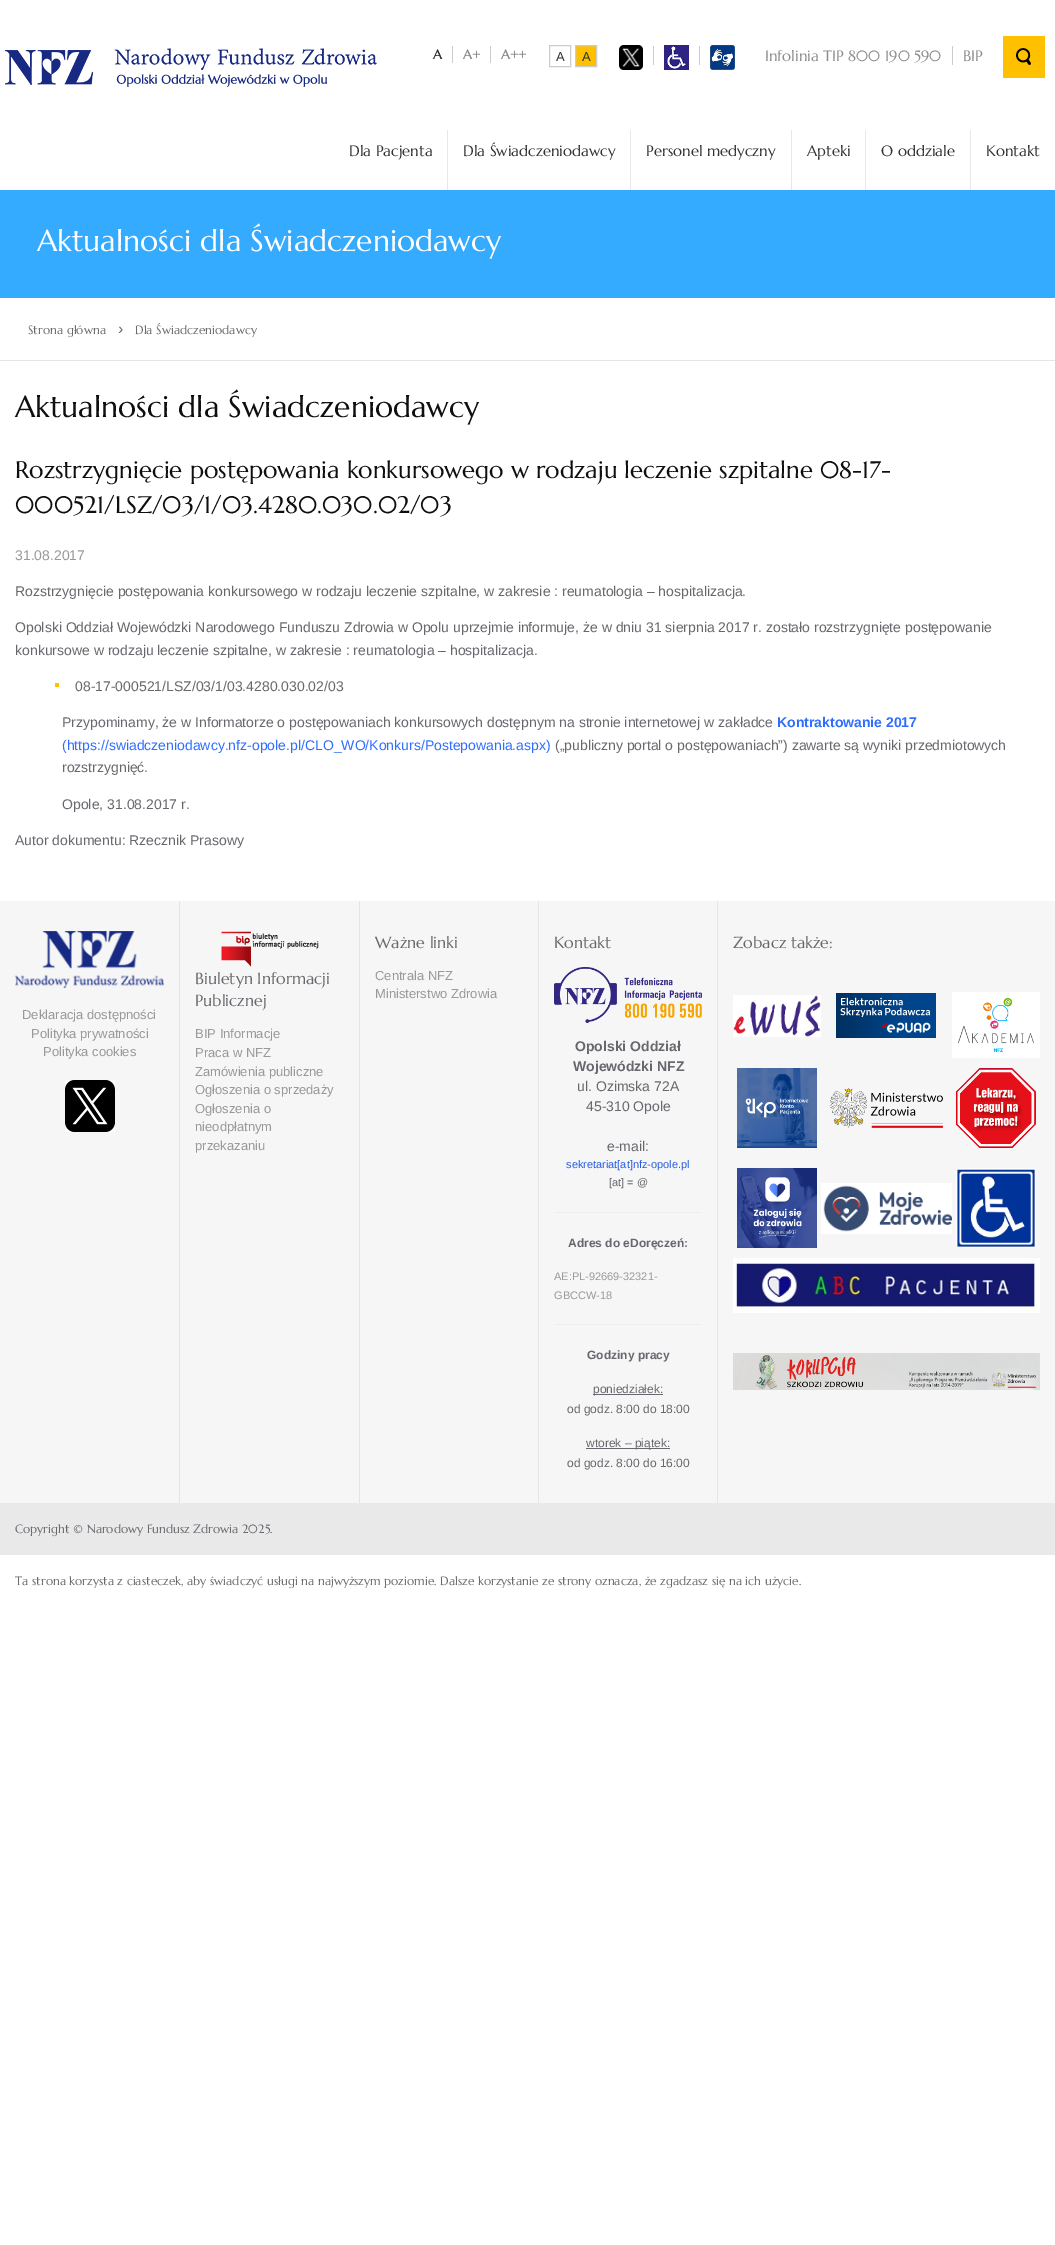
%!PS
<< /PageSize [1055 2245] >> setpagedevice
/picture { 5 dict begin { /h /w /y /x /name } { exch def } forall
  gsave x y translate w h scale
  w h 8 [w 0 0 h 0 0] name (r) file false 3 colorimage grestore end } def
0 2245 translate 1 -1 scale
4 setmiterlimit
1 setgray
0 0 1055 2245 rectfill
(img1.rgb) 5 48 372 39 picture
/Marcellus-Bold [13 0 0 -13 0 0] selectfont
0.2 setgray
433 59 moveto (A) show
0.549 0.553 0.553 setrgbcolor
463 59 moveto (A+) show
0.8 setgray
452 46 1 17 rectfill
0.549 0.553 0.553 setrgbcolor
501 59 moveto (A++) show
0.8 setgray
490 46 1 17 rectfill
549.5 45.5 21 21 rectstroke
/LiberationSans-Regular [13 0 0 -13 0 0] selectfont
0.2 setgray
556 61 moveto (A) show
1 0.753 0 setrgbcolor
newpath 575.5 45.5 moveto 596.5 45.5 lineto 596.5 66.5 lineto 575.5 66.5 lineto closepath gsave fill grestore
0.8 setgray
stroke
0.2 setgray
582 61 moveto (A) show
(img2.rgb) 619 45 24 25 picture
0.8 setgray
653 46 1 19 rectfill
(img3.rgb) 664 45 25 25 picture
699 46 1 19 rectfill
(img4.rgb) 710 45 25 25 picture
/Marcellus-Regular [15 0 0 -15 0 0] selectfont
0.549 0.553 0.553 setrgbcolor
765 61 moveto (Infolinia TIP 800 190 590) show
963 61 moveto (BIP) show
0.8 setgray
952 46 1 19 rectfill
1 0.753 0 setrgbcolor
1003 36 42 42 rectfill
(img5.rgb) 1016 48 15 17 picture
0.2 setgray
349 156 moveto (Dla Pacjenta) show
0.91 setgray
447 130 1 60 rectfill
0.2 setgray
463 156 moveto (Dla Świadczeniodawcy) show
0.91 setgray
630 130 1 60 rectfill
0.2 setgray
646 156 moveto (Personel medyczny) show
0.91 setgray
791 130 1 60 rectfill
0.2 setgray
807 156 moveto (Apteki) show
0.91 setgray
865 130 1 60 rectfill
0.2 setgray
881 156 moveto (O oddziale) show
0.91 setgray
970 130 1 60 rectfill
0.2 setgray
986 156 moveto (Kontakt) show
0.204 0.671 1 setrgbcolor
0 190 1055 108 rectfill
/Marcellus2-Regular [30 0 0 -30 0 0] selectfont
1 setgray
37 251 moveto (Aktualności dla Świadczeniodawcy) show
0.898 setgray
0 360 1055 1 rectfill
/Marcellus-Regular [12 0 0 -12 0 0] selectfont
0.4 0.408 0.427 setrgbcolor
28 334 moveto (Strona główna) show
/LiberationSans-Regular [16 0 0 -16 0 0] selectfont
118 334 moveto (›) show
/Marcellus-Regular [12 0 0 -12 0 0] selectfont
135 334 moveto (Dla Świadczeniodawcy) show
/Marcellus2-Regular [30 0 0 -30 0 0] selectfont
0.059 setgray
15 417 moveto (Aktualności dla Świadczeniodawcy) show
/Marcellus2-Regular [24 0 0 -24 0 0] selectfont
15 478 moveto (Rozstrzygnięcie postępowania konkursowego w rodzaju leczenie szpitalne 08-17-) show
15 513 moveto (000521/LSZ/03/1/03.4280.030.02/03) show
/LiberationSans-Regular [14 0 0 -14 0 0] selectfont
0.6 setgray
15 560 moveto (31.08.2017) show
0.4 0.408 0.427 setrgbcolor
15 596 moveto (Rozstrzygnięcie postępowania konkursowego w rodzaju leczenie szpitalne, w zakresie : reumatologia – hospitalizacja.) show
15 632 moveto (Opolski Oddział Wojewódzki Narodowego Funduszu Zdrowia w Opolu uprzejmie informuje, że w dniu 31 sierpnia 2017 r. zostało rozstrzygnięte postępowanie) show
15 655 moveto (konkursowe w rodzaju leczenie szpitalne, w zakresie : reumatologia – hospitalizacja.) show
1 0.753 0 setrgbcolor
55 683 4 4 rectfill
0.4 0.408 0.427 setrgbcolor
75 691 moveto (08-17-000521/LSZ/03/1/03.4280.030.02/03) show
62 727 moveto (Przypominamy, że w Informatorze o postępowaniach konkursowych dostępnym na stronie internetowej w zakładce) show
/LiberationSans-Bold [14 0 0 -14 0 0] selectfont
0.188 0.431 1 setrgbcolor
777 727 moveto (Kontraktowanie 2017) show
/LiberationSans-Regular [14 0 0 -14 0 0] selectfont
62 750 moveto (\(https://swiadczeniodawcy.nfz-opole.pl/CLO_WO/Konkurs/Postepowania.aspx\)) show
0.4 0.408 0.427 setrgbcolor
555 750 moveto (\(„publiczny portal o postępowaniach”\) zawarte są wyniki przedmiotowych) show
62 772 moveto (rozstrzygnięć.) show
62 809 moveto (Opole, 31.08.2017 r.) show
15 845 moveto (Autor dokumentu: Rzecznik Prasowy) show
0.965 setgray
0 901 1055 602 rectfill
0.898 setgray
359 901 1 602 rectfill
/Marcellus-Regular [16 0 0 -16 0 0] selectfont
0.4 0.408 0.427 setrgbcolor
375 948 moveto (Ważne linki) show
/LiberationSans-Regular [13 0 0 -13 0 0] selectfont
0.6 setgray
375 980 moveto (Centrala NFZ) show
375 998 moveto (Ministerstwo Zdrowia) show
0.898 setgray
538 901 1 602 rectfill
/Marcellus-Regular [16 0 0 -16 0 0] selectfont
0.4 0.408 0.427 setrgbcolor
554 948 moveto (Kontakt) show
(img6.rgb) 554 967 148 56 picture
/LiberationSans-Bold [14 0 0 -14 0 0] selectfont
575 1051 moveto (Opolski Oddział) show
573 1071 moveto (Wojewódzki NFZ) show
/LiberationSans-Regular [14 0 0 -14 0 0] selectfont
577 1091 moveto (ul. Ozimska 72A) show
586 1111 moveto (45-310 Opole) show
607 1151 moveto (e-mail:) show
/LiberationSans-Regular [11 0 0 -11 0 0] selectfont
0.153 0.365 0.878 setrgbcolor
566 1168 moveto (sekretariat[at]nfz-opole.pl) show
0.4 0.408 0.427 setrgbcolor
609 1186 moveto ([at] = @) show
0.933 setgray
554 1212 148 1 rectfill
/LiberationSans-Bold [12 0 0 -12 0 0] selectfont
0.4 0.408 0.427 setrgbcolor
568 1247 moveto (Adres do eDoręczeń:) show
/LiberationSans-Regular [11 0 0 -11 0 0] selectfont
0.6 setgray
554 1280 moveto (AE:PL-92669-32321-) show
554 1299 moveto (GBCCW-18) show
0.933 setgray
554 1324 148 1 rectfill
/LiberationSans-Bold [12 0 0 -12 0 0] selectfont
0.4 0.408 0.427 setrgbcolor
587 1359 moveto (Godziny pracy) show
593 1394 70 1 rectfill
/LiberationSans-Regular [12 0 0 -12 0 0] selectfont
593 1393 moveto (poniedziałek:) show
567 1413 moveto (od godz. 8:00 do 18:00) show
586 1448 84 1 rectfill
586 1447 moveto (wtorek – piątek:) show
567 1467 moveto (od godz. 8:00 do 16:00) show
0.898 setgray
717 901 1 602 rectfill
/Marcellus-Regular [16 0 0 -16 0 0] selectfont
0.4 0.408 0.427 setrgbcolor
733 948 moveto (Zobacz także:) show
(img7.rgb) 733 995 88 42 picture
(img8.rgb) 836 993 100 45 picture
(img9.rgb) 952 992 88 66 picture
(img10.rgb) 737 1068 80 80 picture
(img11.rgb) 830 1088 113 40 picture
(img12.rgb) 956 1068 80 80 picture
(img13.rgb) 737 1168 80 80 picture
(img14.rgb) 821 1183 131 51 picture
(img15.rgb) 956 1168 80 80 picture
(img16.rgb) 733 1258 307 55 picture
(img17.rgb) 733 1353 307 37 picture
(img18.rgb) 15 931 149 57 picture
/LiberationSans-Regular [13 0 0 -13 0 0] selectfont
0.6 setgray
22 1019 moveto (Deklaracja dostępności) show
31 1038 moveto (Polityka prywatności) show
43 1056 moveto (Polityka cookies) show
(img19.rgb) 65 1080 50 52 picture
0.898 setgray
179 901 1 602 rectfill
(img20.rgb) 221 931 98 36 picture
/Marcellus-Regular [16 0 0 -16 0 0] selectfont
0.4 0.408 0.427 setrgbcolor
195 984 moveto (Biuletyn Informacji) show
195 1006 moveto (Publicznej) show
/LiberationSans-Regular [13 0 0 -13 0 0] selectfont
0.6 setgray
195 1038 moveto (BIP Informacje) show
195 1057 moveto (Praca w NFZ) show
195 1076 moveto (Zamówienia publiczne) show
195 1094 moveto (Ogłoszenia o sprzedaży) show
195 1113 moveto (Ogłoszenia o) show
195 1131 moveto (nieodpłatnym) show
195 1150 moveto (przekazaniu) show
0.914 setgray
0 1503 1055 52 rectfill
/Marcellus-Regular [12 0 0 -12 0 0] selectfont
0.4 0.408 0.427 setrgbcolor
15 1533 moveto (Copyright © Narodowy Fundusz Zdrowia 2025.) show
15 1585 moveto (Ta strona korzysta z ciasteczek, aby świadczyć usługi na najwyższym poziomie. Dalsze korzystanie ze strony oznacza, że zgadzasz się na ich użycie.) show
showpage
